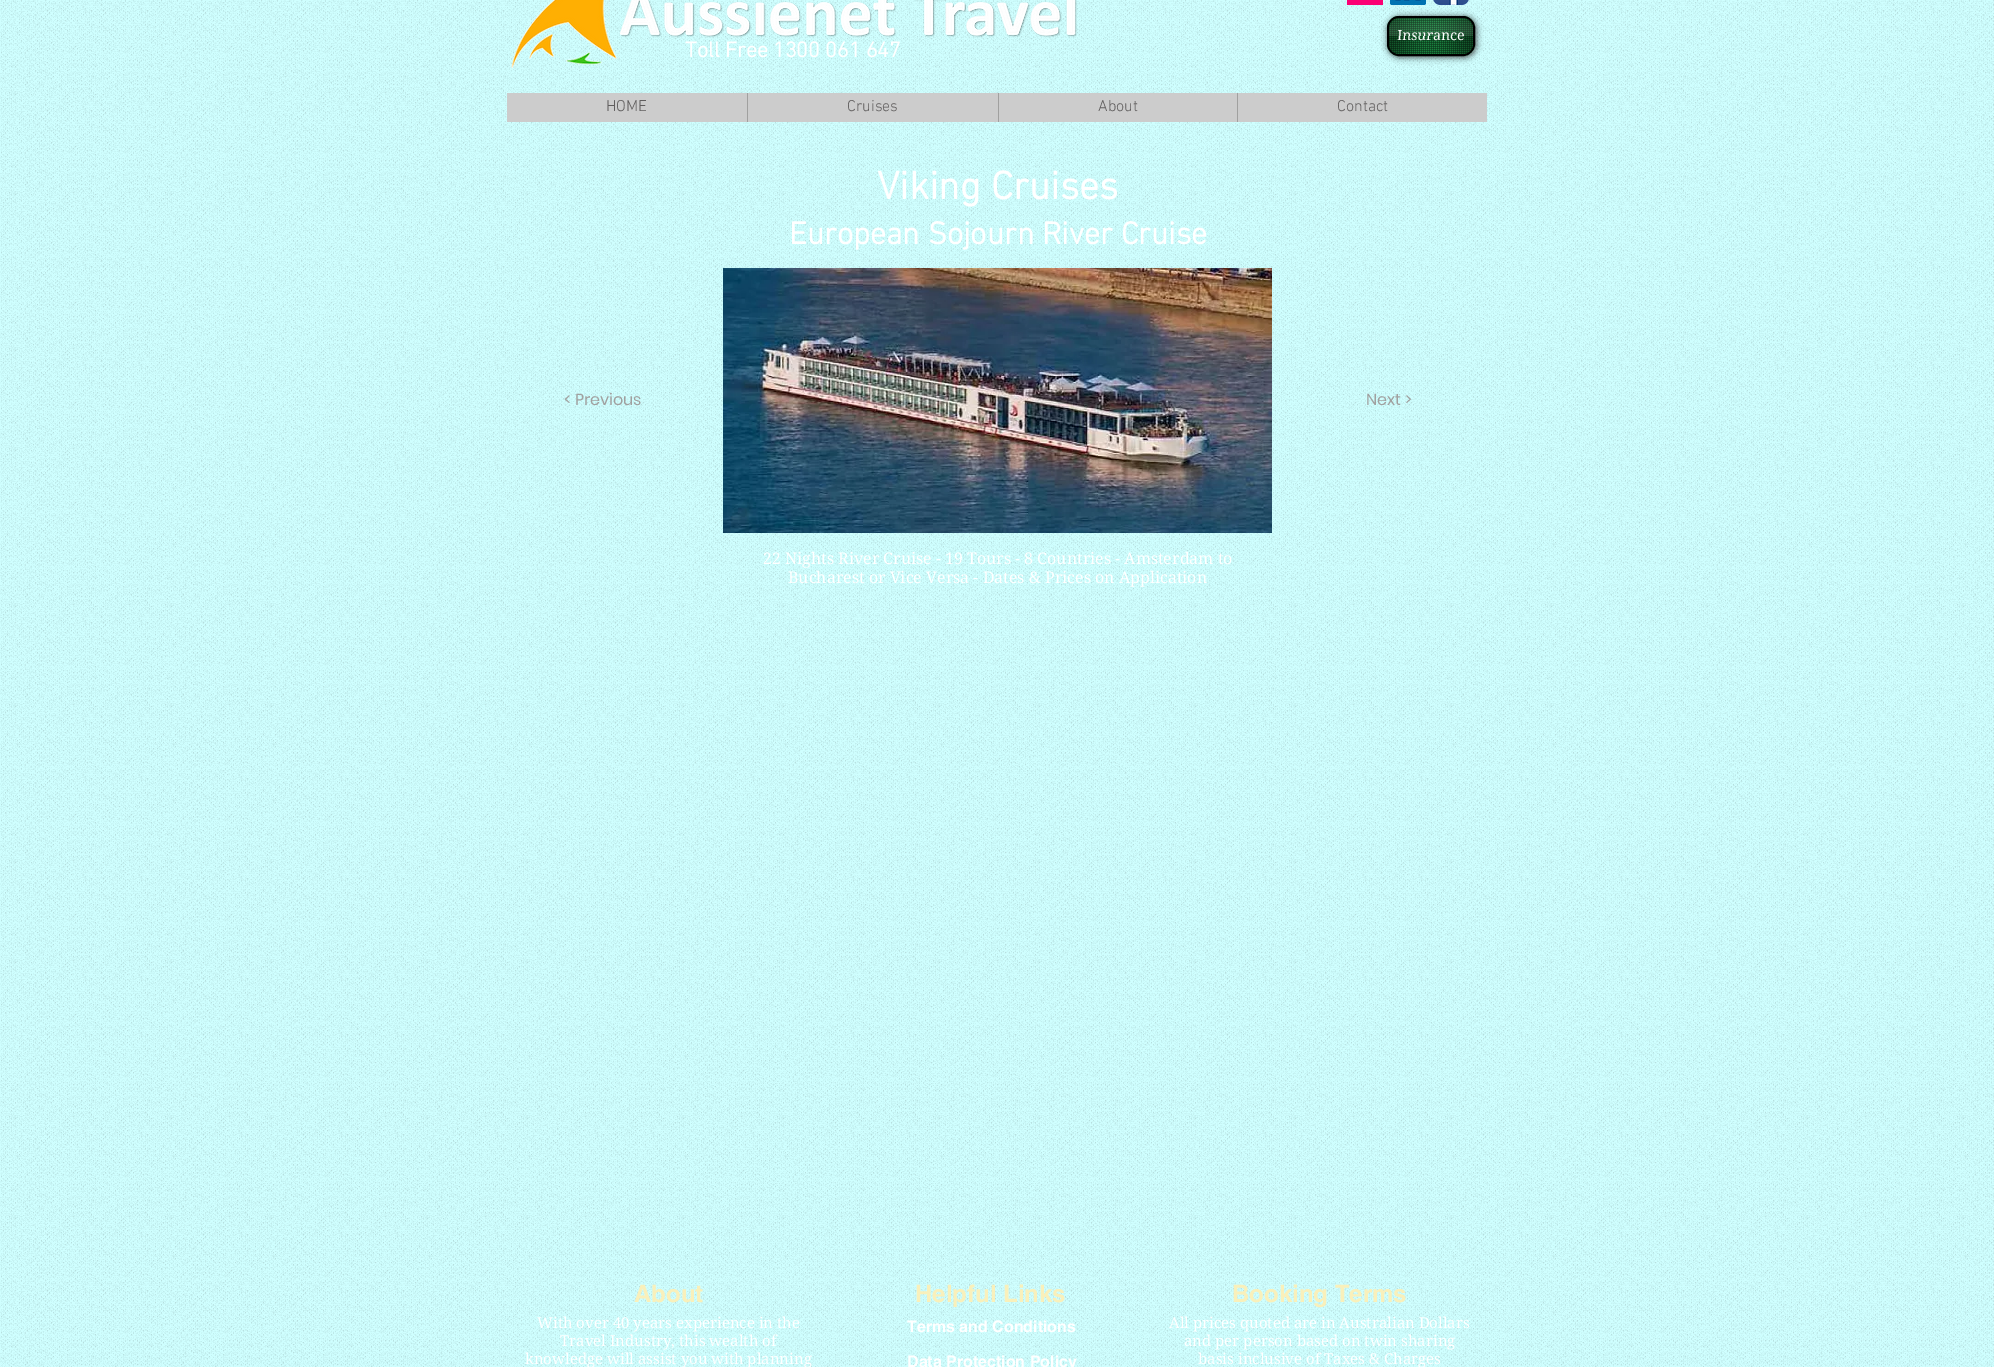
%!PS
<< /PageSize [1994 1367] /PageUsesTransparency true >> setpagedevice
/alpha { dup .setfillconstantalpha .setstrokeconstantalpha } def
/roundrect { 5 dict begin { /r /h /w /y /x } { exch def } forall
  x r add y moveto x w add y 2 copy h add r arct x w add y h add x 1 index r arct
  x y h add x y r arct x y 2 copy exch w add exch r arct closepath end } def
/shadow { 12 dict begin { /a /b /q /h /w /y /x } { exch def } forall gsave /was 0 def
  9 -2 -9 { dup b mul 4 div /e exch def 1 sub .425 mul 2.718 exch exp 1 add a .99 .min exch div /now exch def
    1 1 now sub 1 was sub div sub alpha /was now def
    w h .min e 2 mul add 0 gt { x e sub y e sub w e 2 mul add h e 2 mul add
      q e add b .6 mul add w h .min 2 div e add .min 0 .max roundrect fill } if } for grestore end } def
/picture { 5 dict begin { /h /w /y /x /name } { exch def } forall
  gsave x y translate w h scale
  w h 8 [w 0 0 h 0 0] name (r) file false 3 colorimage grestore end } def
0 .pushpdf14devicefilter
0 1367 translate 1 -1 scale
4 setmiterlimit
0.812 1 1 setrgbcolor
0 0 1994 1367 rectfill
(img1.rgb) 0 0 1994 1367 picture
(img2.rgb) 511 0 566 68 picture
0.984 0 0.455 setrgbcolor
1347 0 36 5 rectfill
(img3.rgb) 1390 0 36 5 picture
(img4.rgb) 1433 0 36 5 picture
1 setgray
1388 17 88 40 12 1.5 0.3 shadow
0 setgray
1387 16 90 42 13 3 0.6 shadow
0.11 0.541 0.263 setrgbcolor
1387 16 88 40 12 roundrect fill
(img5.rgb) 1387 16 88 40 picture
0 setgray
2 setlinewidth
1388 17 86 38 11 roundrect stroke
(img6.rgb) 1389 18 46 36 picture
(img8.rgb) 1428 18 45 36 picture
/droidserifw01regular-Regular [14 0 0 -14 0 0] selectfont
1 setgray
1397 40 moveto (Insurance) show
(img7.rgb) 1389 18 84 18 picture
/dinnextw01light-Bold [22 0 0 -22 0 0] selectfont
685 57 moveto (Toll Free 1300 061 647) show
0.8 setgray
507 93 980 29 rectfill
/dinnextw01light-Light [16 0 0 -16 0 0] selectfont
0.376 0.369 0.369 setrgbcolor
606 111 moveto (HOME) show
0.627 0.627 0.624 setrgbcolor
747 93 1 29 rectfill
0.376 0.369 0.369 setrgbcolor
847 111 moveto (Cruises) show
0.627 0.627 0.624 setrgbcolor
998 93 1 29 rectfill
0.376 0.369 0.369 setrgbcolor
1098 111 moveto (About) show
0.627 0.627 0.624 setrgbcolor
1237 93 1 29 rectfill
0.376 0.369 0.369 setrgbcolor
1337 111 moveto (Contact) show
/dinnextw01light-Bold [40 0 0 -40 0 0] selectfont
1 setgray
877 199 moveto (Viking Cruises) show
/dinnextw01light-Bold [32 0 0 -32 0 0] selectfont
789 244 moveto (European Sojourn River Cruise) show
/Poppins-Regular [16 0 0 -16 0 0] selectfont
0.627 0.627 0.624 setrgbcolor
564 405 moveto (< Previous) show
(img9.rgb) 723 268 549 265 picture
1366 405 moveto (Next >) show
/droidserifw01regular-Regular [16 0 0 -16 0 0] selectfont
1 setgray
763 564 moveto (22 Nights River Cruise - 19 Tours - 8 Countries - Amsterdam to) show
788 583 moveto (Bucharest or Vice Versa - Dates & Prices on Application) show
/helvetica-Bold [24 0 0 -24 0 0] selectfont
0.976 0.941 0.733 setrgbcolor
634 1302 moveto (About) show
/droidserifw01regular-Regular [15 0 0 -15 0 0] selectfont
1 setgray
537 1328 moveto (With over 40 years experience in the) show
560 1346 moveto (Travel Industry, this wealth of) show
525 1364 moveto (knowledge will assist you with planning) show
/helvetica-Bold [24 0 0 -24 0 0] selectfont
0.976 0.941 0.733 setrgbcolor
915 1302 moveto (Helpful Links) show
/helvetica-Bold [16 0 0 -16 0 0] selectfont
1 setgray
907 1332 moveto (Terms and Conditions) show
907 1367 moveto (Data Protection Policy) show
/helvetica-Bold [24 0 0 -24 0 0] selectfont
0.976 0.941 0.733 setrgbcolor
1232 1302 moveto (Booking Terms) show
/droidserifw01regular-Regular [15 0 0 -15 0 0] selectfont
1 setgray
1169 1328 moveto (All prices quoted are in Australian Dollars) show
1184 1346 moveto (and per person based on twin sharing) show
1198 1364 moveto (basis inclusive of Taxes & Charges) show
.poppdf14devicefilter showpage
